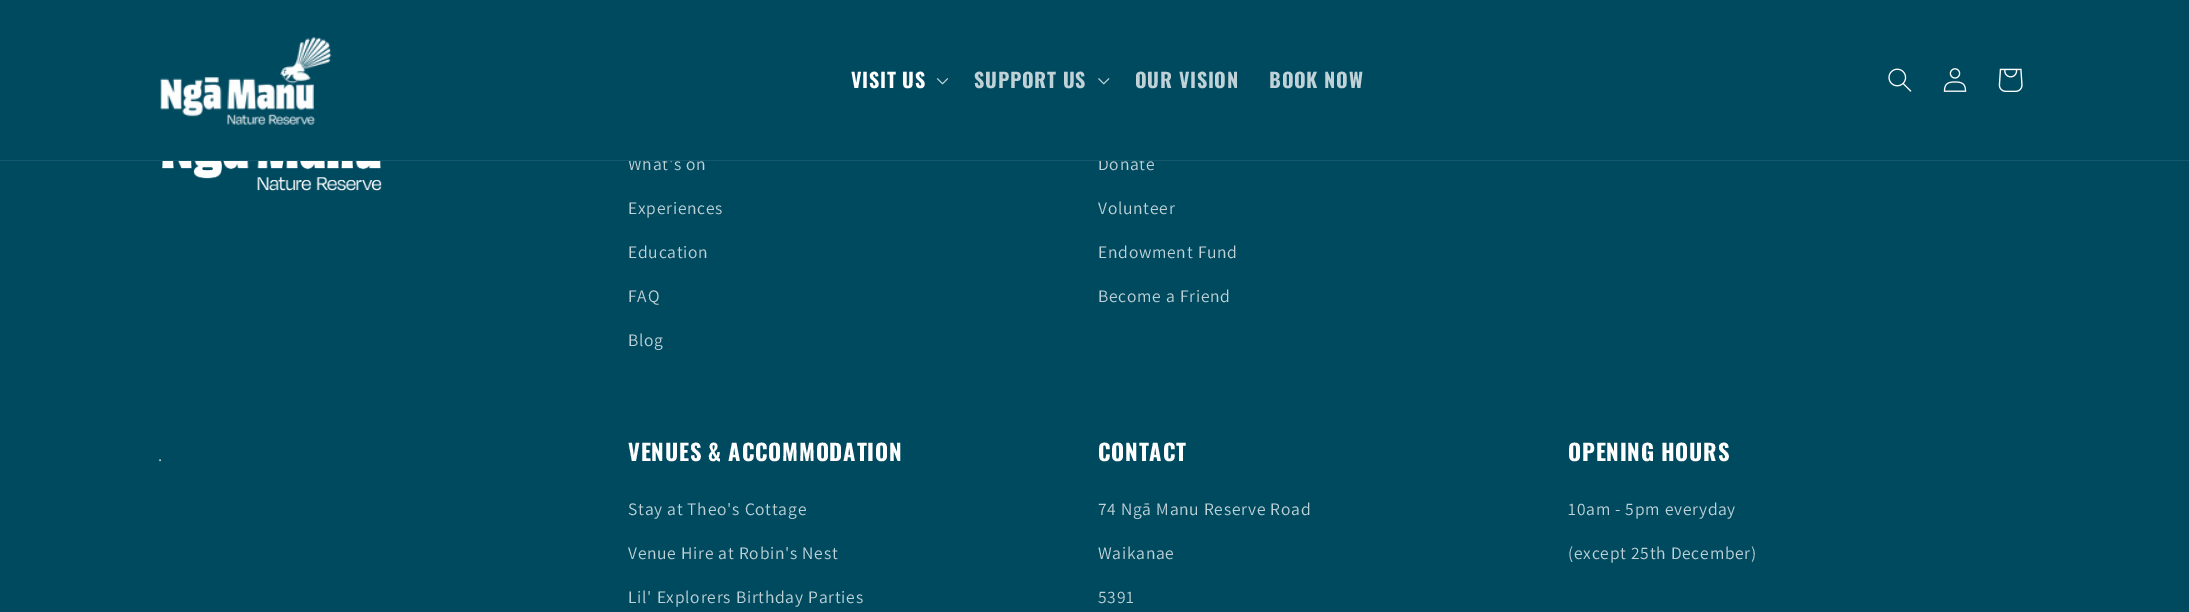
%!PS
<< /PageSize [2189 612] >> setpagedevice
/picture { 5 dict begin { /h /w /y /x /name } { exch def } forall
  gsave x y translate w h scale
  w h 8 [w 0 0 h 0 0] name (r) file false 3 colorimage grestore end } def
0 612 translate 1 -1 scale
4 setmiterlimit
0 0.29 0.376 setrgbcolor
0 0 2189 612 rectfill
/Assistant-Regular [17.5 0 0 -17.5 0 0] selectfont
0.749 0.824 0.843 setrgbcolor
628 170 moveto 0.75 0 (What's on) ashow
1098 170 moveto 0.75 0 (Donate) ashow
0 0.29 0.376 setrgbcolor
628 157 514 3 rectfill
0.078 0.345 0.427 setrgbcolor
0 160 2189 1 rectfill
(img1.rgb) 160 37 172 88 picture
/Oswald-Bold [20 0 0 -20 0 0] selectfont
1 setgray
851 88 moveto 0.75 0 (VISIT US) ashow
(img2.rgb) 936 78 13 7 picture
0.749 0.824 0.843 setrgbcolor
974 88 moveto 0.75 0 (SUPPORT US) ashow
(img3.rgb) 1098 78 12 7 picture
1135 88 moveto 0.75 0 (OUR VISION) ashow
1269 88 moveto 0.75 0 (BOOK NOW) ashow
(img4.rgb) 1888 68 24 24 picture
(img5.rgb) 1943 68 24 24 picture
(img6.rgb) 1998 68 25 24 picture
(img7.rgb) 162 161 220 30 picture
/Assistant-Regular [17.5 0 0 -17.5 0 0] selectfont
628 214 moveto 0.75 0 (Experiences) ashow
628 258 moveto 0.75 0 (Education) ashow
628 302 moveto 0.75 0 (FAQ) ashow
628 346 moveto 0.75 0 (Blog) ashow
1098 214 moveto 0.75 0 (Volunteer) ashow
1098 258 moveto 0.75 0 (Endowment Fund) ashow
1098 302 moveto 0.75 0 (Become a Friend) ashow
158 461 moveto 0.75 0 (.) ashow
/Oswald-Bold [22.5 0 0 -22.5 0 0] selectfont
1 setgray
628 461 moveto 0.75 0 (VENUES & ACCOMMODATION) ashow
/Assistant-Regular [17.5 0 0 -17.5 0 0] selectfont
0.749 0.824 0.843 setrgbcolor
628 515 moveto 0.75 0 (Stay at Theo's Cottage) ashow
628 559 moveto 0.75 0 (Venue Hire at Robin's Nest) ashow
628 603 moveto 0.75 0 (Lil' Explorers Birthday Parties) ashow
/Oswald-Bold [22.5 0 0 -22.5 0 0] selectfont
1 setgray
1098 461 moveto 0.75 0 (CONTACT) ashow
/Assistant-Regular [17.5 0 0 -17.5 0 0] selectfont
0.749 0.824 0.843 setrgbcolor
1098 515 moveto 0.75 0 (74 Ngā Manu Reserve Road) ashow
1098 559 moveto 0.75 0 (Waikanae) ashow
1098 603 moveto 0.75 0 (5391) ashow
/Oswald-Bold [22.5 0 0 -22.5 0 0] selectfont
1 setgray
1568 461 moveto 0.75 0 (OPENING HOURS) ashow
/Assistant-Regular [17.5 0 0 -17.5 0 0] selectfont
0.749 0.824 0.843 setrgbcolor
1568 515 moveto 0.75 0 (10am - 5pm everyday) ashow
1568 559 moveto 0.75 0 (\(except 25th December\)) ashow
showpage
